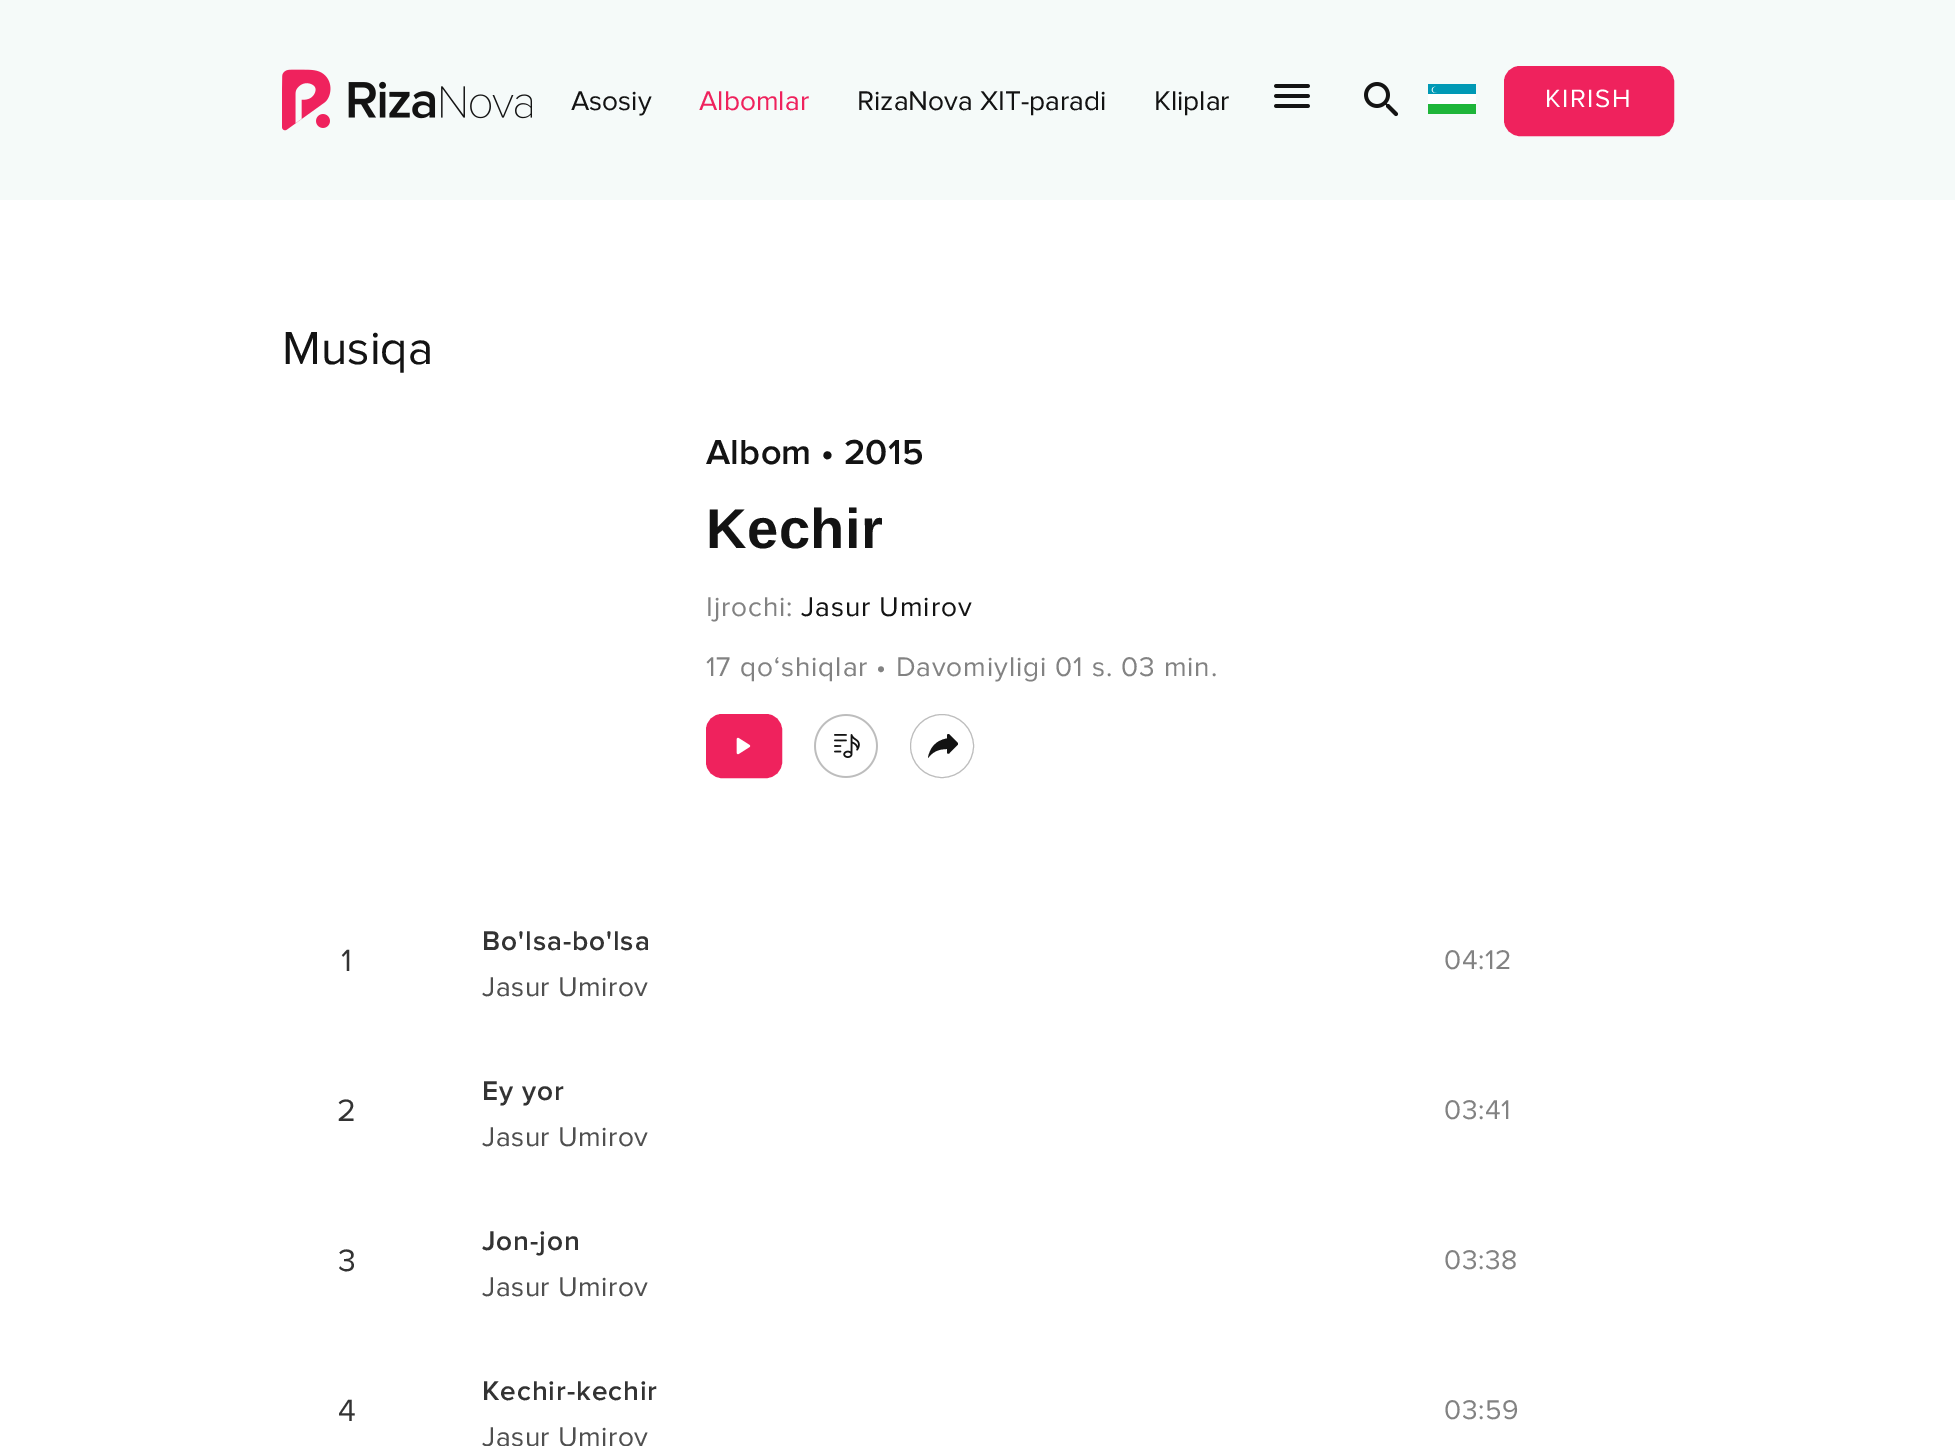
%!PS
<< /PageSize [1955 1446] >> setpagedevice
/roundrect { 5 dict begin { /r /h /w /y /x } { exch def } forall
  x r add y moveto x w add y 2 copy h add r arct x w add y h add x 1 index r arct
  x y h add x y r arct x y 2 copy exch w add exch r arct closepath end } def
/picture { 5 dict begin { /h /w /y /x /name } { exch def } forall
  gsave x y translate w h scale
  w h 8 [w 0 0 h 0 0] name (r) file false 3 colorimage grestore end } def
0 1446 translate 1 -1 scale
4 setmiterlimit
1 setgray
0 0 1955 1446 rectfill
0.961 0.98 0.976 setrgbcolor
0 0 1955 200 rectfill
(img1.rgb) 282 69 250 62 picture
/ProximaNova-Regular [28 0 0 -28 0 0] selectfont
0.075 setgray
571 110 moveto (Asosiy) show
0.937 0.133 0.365 setrgbcolor
699 110 moveto (Albomlar) show
0.075 setgray
857 110 moveto (RizaNova XIT-paradi) show
1154 110 moveto (Kliplar) show
(img2.rgb) 1274 84 36 24 picture
(img3.rgb) 1364 82 35 35 picture
0.118 0.71 0.227 setrgbcolor
1428 104 48 10 rectfill
0 0.6 0.71 setrgbcolor
1428 84 48 10 rectfill
1 setgray
1428 94 48 10 rectfill
newpath 1434.7 89.8 2.9 0 360 arc closepath fill
0 0.6 0.71 setrgbcolor
newpath 1435.7 89.8 2.9 0 360 arc closepath fill
0.937 0.133 0.365 setrgbcolor
1505 67 168 68 15 roundrect gsave fill grestore
2 setlinewidth
stroke
/ProximaNova-Regular [26 0 0 -26 0 0] selectfont
1 setgray
1545 107 moveto 1.5 0 (KIRISH) ashow
/ProximaNova-Regular [48 0 0 -48 0 0] selectfont
0.075 setgray
282 364 moveto (Musiqa) show
/ProximaNova-SemiBold [36 0 0 -36 0 0] selectfont
706 464 moveto 0.25 0 (Albom • 2015) ashow
/LiberationSans-Bold [56 0 0 -56 0 0] selectfont
706 548 moveto 0.5 0 (Kechir) ashow
/ProximaNova-Regular [28 0 0 -28 0 0] selectfont
0.51 setgray
706 616 moveto 0.9 0 (Ijrochi:) ashow
0.075 setgray
801 616 moveto 0.9 0 (Jasur Umirov) ashow
0.51 setgray
706 676 moveto 0.9 0 (17 qo‘shiqlar • Davomiyligi 01 s. 03 min.) ashow
0.937 0.133 0.365 setrgbcolor
707 715 74 62 15 roundrect gsave fill grestore
stroke
(img4.rgb) 736 737 15 18 picture
(img5.rgb) 814 714 64 64 picture
0.741 setgray
1 setlinewidth
newpath 942 746 31.5 0 360 arc closepath stroke
0.075 setgray
newpath 947 738.5 moveto 947 736 lineto 947 734 948.5 733.5 949.5 734.5 curveto 957.5 742.5 lineto 958 743.5 958 744.5 957.5 745 curveto 949.5 753 lineto 948.5 754.5 947 753.5 947 752 curveto 947 749 lineto 938 749 932.5 752 928 758 curveto 929.5 749 935 740.5 947 738.5 curveto closepath fill
/ProximaNova-Regular [32 0 0 -32 0 0] selectfont
0.2 setgray
341 971 moveto 0.25 0 (1) ashow
/ProximaNova-SemiBold [28 0 0 -28 0 0] selectfont
482 950 moveto 0.9 0 (Bo'lsa-bo'lsa) ashow
/ProximaNova-Regular [28 0 0 -28 0 0] selectfont
0.31 setgray
482 996 moveto 0.5 0 (Jasur Umirov) ashow
0.51 setgray
1444 969 moveto 0.5 0 (04:12) ashow
/ProximaNova-Regular [32 0 0 -32 0 0] selectfont
0.2 setgray
337 1121 moveto 0.25 0 (2) ashow
/ProximaNova-SemiBold [28 0 0 -28 0 0] selectfont
482 1100 moveto 0.9 0 (Ey yor) ashow
/ProximaNova-Regular [28 0 0 -28 0 0] selectfont
0.31 setgray
482 1146 moveto 0.5 0 (Jasur Umirov) ashow
0.51 setgray
1444 1119 moveto 0.5 0 (03:41) ashow
/ProximaNova-Regular [32 0 0 -32 0 0] selectfont
0.2 setgray
338 1271 moveto 0.25 0 (3) ashow
/ProximaNova-SemiBold [28 0 0 -28 0 0] selectfont
482 1250 moveto 0.9 0 (Jon-jon) ashow
/ProximaNova-Regular [28 0 0 -28 0 0] selectfont
0.31 setgray
482 1296 moveto 0.5 0 (Jasur Umirov) ashow
0.51 setgray
1444 1269 moveto 0.5 0 (03:38) ashow
/ProximaNova-Regular [32 0 0 -32 0 0] selectfont
0.2 setgray
338 1421 moveto 0.25 0 (4) ashow
/ProximaNova-SemiBold [28 0 0 -28 0 0] selectfont
482 1400 moveto 0.9 0 (Kechir-kechir) ashow
/ProximaNova-Regular [28 0 0 -28 0 0] selectfont
0.31 setgray
482 1446 moveto 0.5 0 (Jasur Umirov) ashow
0.51 setgray
1444 1419 moveto 0.5 0 (03:59) ashow
showpage
